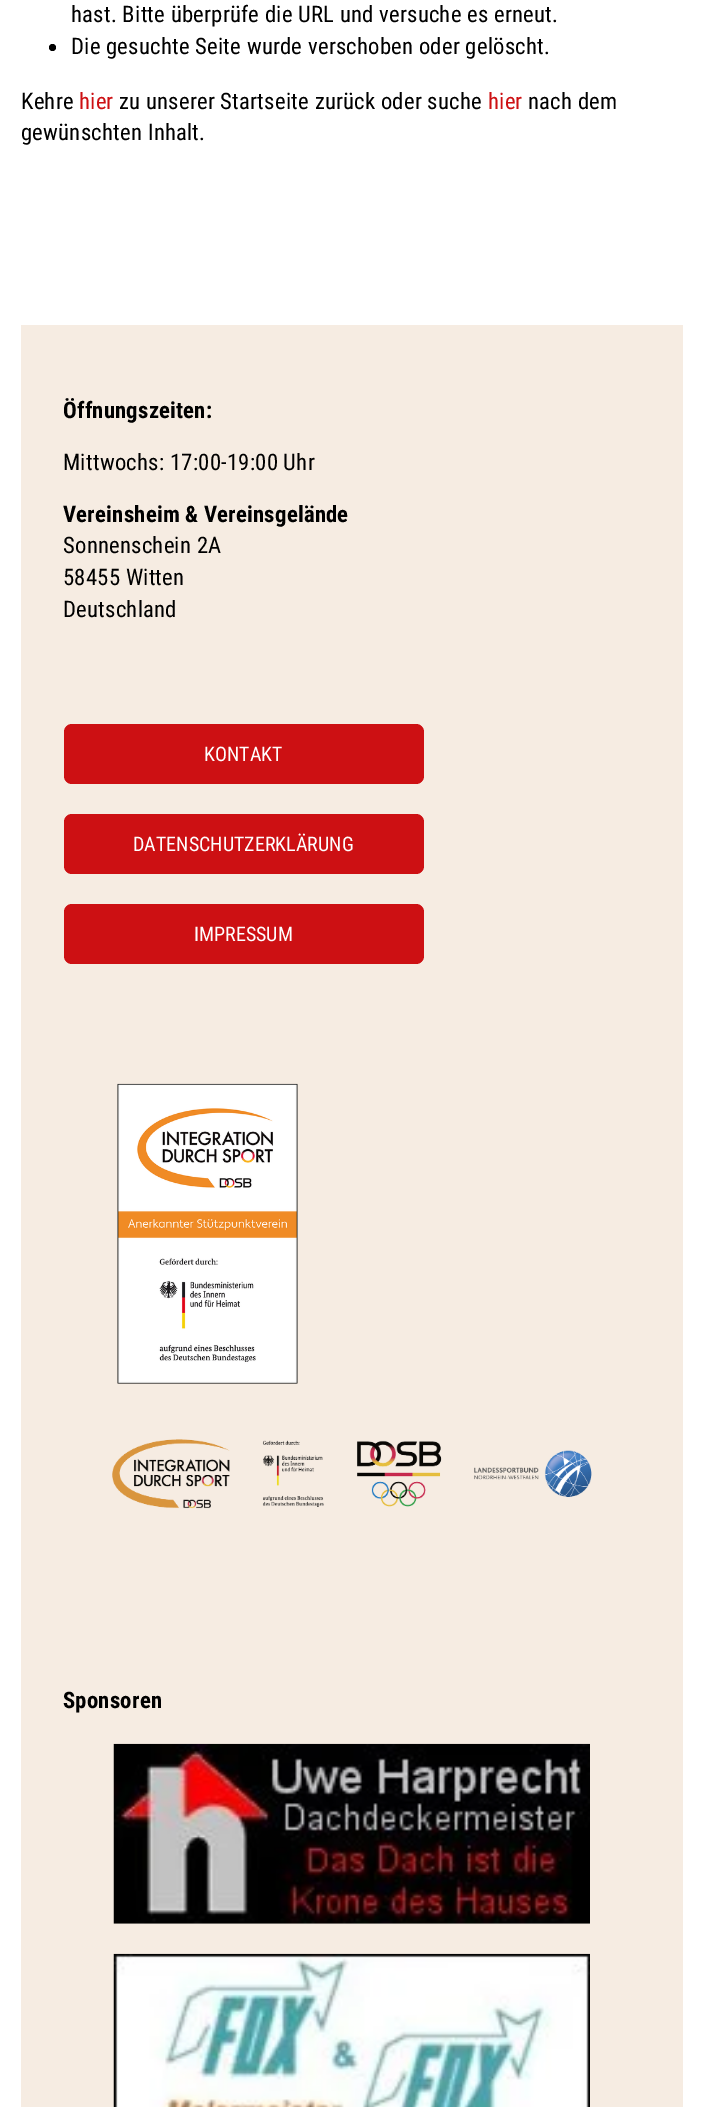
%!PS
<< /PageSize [703 2107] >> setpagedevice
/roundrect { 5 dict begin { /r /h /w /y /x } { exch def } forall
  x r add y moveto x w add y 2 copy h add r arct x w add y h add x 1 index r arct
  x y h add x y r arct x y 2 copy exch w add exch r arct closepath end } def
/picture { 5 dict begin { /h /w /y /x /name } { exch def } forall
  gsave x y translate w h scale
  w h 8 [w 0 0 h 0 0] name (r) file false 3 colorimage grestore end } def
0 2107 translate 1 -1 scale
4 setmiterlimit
1 setgray
0 0 703 2107 rectfill
/RobotoCondensed-Regular [22.7 0 0 -22.7 0 0] selectfont
0 setgray
71 22 moveto 0.23 0 (hast. Bitte überprüfe die URL und versuche es erneut.) ashow
newpath 52.5 47.5 3.5 0 360 arc closepath fill
71 54 moveto 0.23 0 (Die gesuchte Seite wurde verschoben oder gelöscht.) ashow
21 109 moveto 0.23 0 (Kehre) ashow
0.804 0.063 0.075 setrgbcolor
79 109 moveto 0.23 0 (hier) ashow
0 setgray
119 109 moveto 0.23 0 (zu unserer Startseite zurück oder suche) ashow
0.804 0.063 0.075 setrgbcolor
488 109 moveto 0.23 0 (hier) ashow
0 setgray
528 109 moveto 0.23 0 (nach dem) ashow
21 140 moveto 0.23 0 (gewünschten Inhalt.) ashow
0.965 0.925 0.886 setrgbcolor
21 325 662 1782 rectfill
/RobotoCondensed-Bold [22.7 0 0 -22.7 0 0] selectfont
0 setgray
63 418 moveto 0.23 0 (Öffnungszeiten:) ashow
/RobotoCondensed-Regular [22.7 0 0 -22.7 0 0] selectfont
63 470 moveto 0.23 0 (Mittwochs: 17:00-19:00 Uhr) ashow
/RobotoCondensed-Bold [22.7 0 0 -22.7 0 0] selectfont
63 522 moveto 0.23 0 (Vereinsheim & Vereinsgelände) ashow
/RobotoCondensed-Regular [22.7 0 0 -22.7 0 0] selectfont
63 553 moveto 0.23 0 (Sonnenschein 2A) ashow
63 585 moveto 0.23 0 (58455 Witten) ashow
63 617 moveto 0.23 0 (Deutschland) ashow
0.804 0.063 0.075 setrgbcolor
64 724 360 60 8 roundrect fill
/RobotoCondensed-Regular [20 0 0 -20 0 0] selectfont
1 setgray
204 761 moveto (KONTAKT) show
0.804 0.063 0.075 setrgbcolor
64 814 360 60 8 roundrect fill
1 setgray
133 851 moveto (DATENSCHUTZERKLÄRUNG) show
0.804 0.063 0.075 setrgbcolor
64 904 360 60 8 roundrect fill
1 setgray
194 941 moveto (IMPRESSUM) show
(img1.rgb) 117 1083 181 301 picture
(img2.rgb) 112 1439 480 70 picture
/RobotoCondensed-Bold [22.7 0 0 -22.7 0 0] selectfont
0 setgray
63 1708 moveto 0.23 0 (Sponsoren) ashow
(img3.rgb) 113 1743 477 181 picture
(img4.rgb) 113 1953 477 154 picture
showpage
